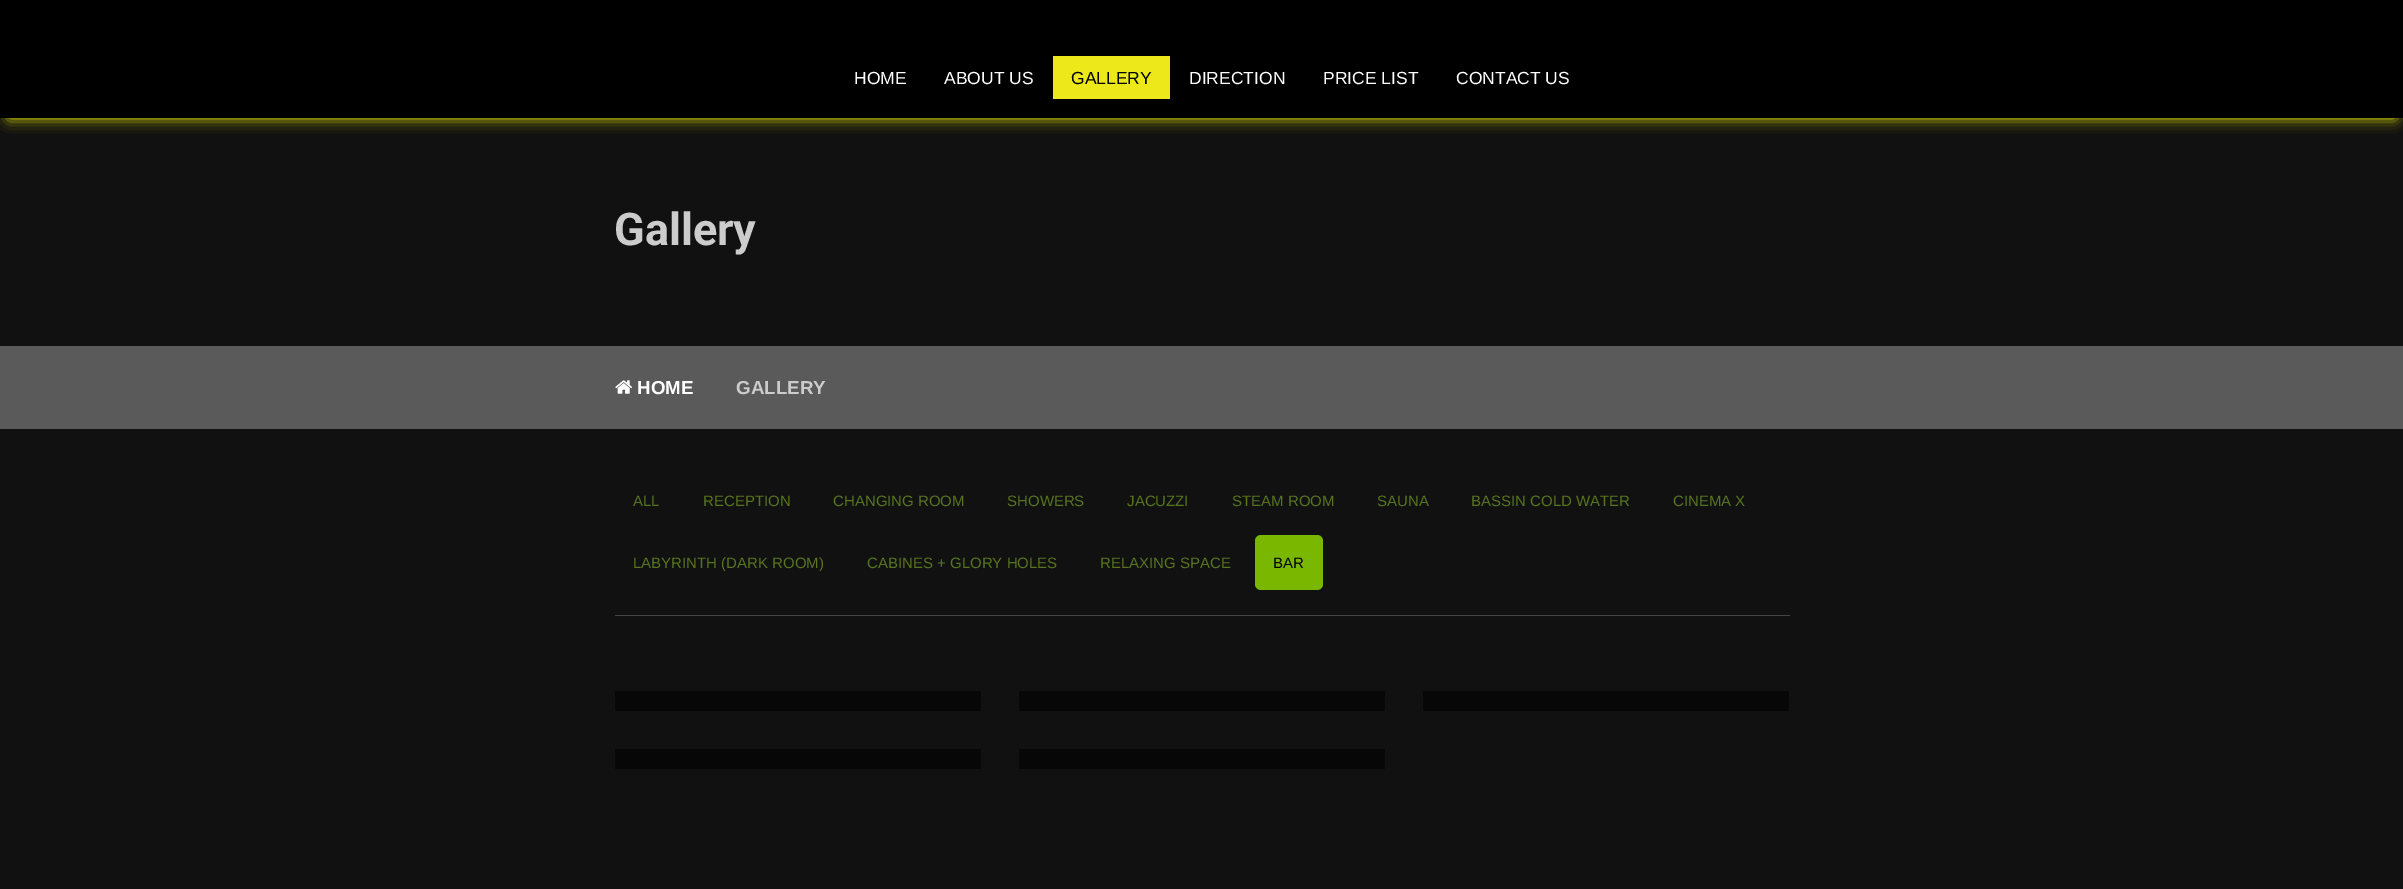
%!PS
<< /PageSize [2403 889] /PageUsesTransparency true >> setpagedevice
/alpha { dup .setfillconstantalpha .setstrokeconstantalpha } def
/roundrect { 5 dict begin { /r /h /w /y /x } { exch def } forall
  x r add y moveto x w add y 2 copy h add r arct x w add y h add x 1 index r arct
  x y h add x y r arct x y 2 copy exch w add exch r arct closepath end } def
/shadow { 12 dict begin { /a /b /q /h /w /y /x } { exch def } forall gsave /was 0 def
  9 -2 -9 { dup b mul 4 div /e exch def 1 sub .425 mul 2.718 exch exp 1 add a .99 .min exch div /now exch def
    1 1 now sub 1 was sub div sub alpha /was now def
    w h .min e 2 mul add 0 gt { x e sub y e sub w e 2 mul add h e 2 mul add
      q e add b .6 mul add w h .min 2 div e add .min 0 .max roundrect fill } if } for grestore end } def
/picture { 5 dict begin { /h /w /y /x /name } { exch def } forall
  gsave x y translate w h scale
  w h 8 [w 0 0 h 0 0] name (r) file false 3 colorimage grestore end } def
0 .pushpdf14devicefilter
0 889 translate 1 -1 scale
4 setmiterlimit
0.067 setgray
0 0 2403 889 rectfill
0 setgray
0 0 2403 38 rectfill
1 1 0 setrgbcolor
9 55 2386 63 0 7 1 shadow
0 setgray
0 38 2403 80 rectfill
/LiberationSans-Regular [17.5 0 0 -17.5 0 0] selectfont
1 setgray
854 84 moveto (HOME) show
944 84 moveto (ABOUT US) show
0.929 0.91 0.102 setrgbcolor
1053 56 117 43 rectfill
0 setgray
1071 84 moveto (GALLERY) show
1 setgray
1189 84 moveto (DIRECTION) show
1323 84 moveto (PRICE LIST) show
1456 84 moveto (CONTACT US) show
/Roboto-Bold [45 0 0 -45 0 0] selectfont
0.8 setgray
614 245 moveto (Gallery) show
0.353 setgray
0 346 2403 83 rectfill
(img1.rgb) 615 380 18 14 picture
/LiberationSans-Bold [18.75 0 0 -18.75 0 0] selectfont
1 setgray
637 394 moveto (HOME) show
0.8 setgray
736 394 moveto (GALLERY) show
0.267 setgray
615 615 1175 1 rectfill
/LiberationSans-Regular [15 0 0 -15 0 0] selectfont
0.341 0.455 0.118 setrgbcolor
633 506 moveto (ALL) show
703 506 moveto (RECEPTION) show
833 506 moveto (CHANGING ROOM) show
1007 506 moveto (SHOWERS) show
1127 506 moveto (JACUZZI) show
1232 506 moveto (STEAM ROOM) show
1377 506 moveto (SAUNA) show
1471 506 moveto (BASSIN COLD WATER) show
1673 506 moveto (CINEMA X) show
633 568 moveto (LABYRINTH \(DARK ROOM\)) show
867 568 moveto (CABINES + GLORY HOLES) show
1100 568 moveto (RELAXING SPACE) show
0.475 0.718 0.004 setrgbcolor
1255 535 68 55 6 roundrect fill
0 setgray
1273 568 moveto (BAR) show
0.027 setgray
615 691 366 20 rectfill
1019 691 366 20 rectfill
1423 691 366 20 rectfill
615 749 366 20 rectfill
1019 749 366 20 rectfill
.poppdf14devicefilter showpage
